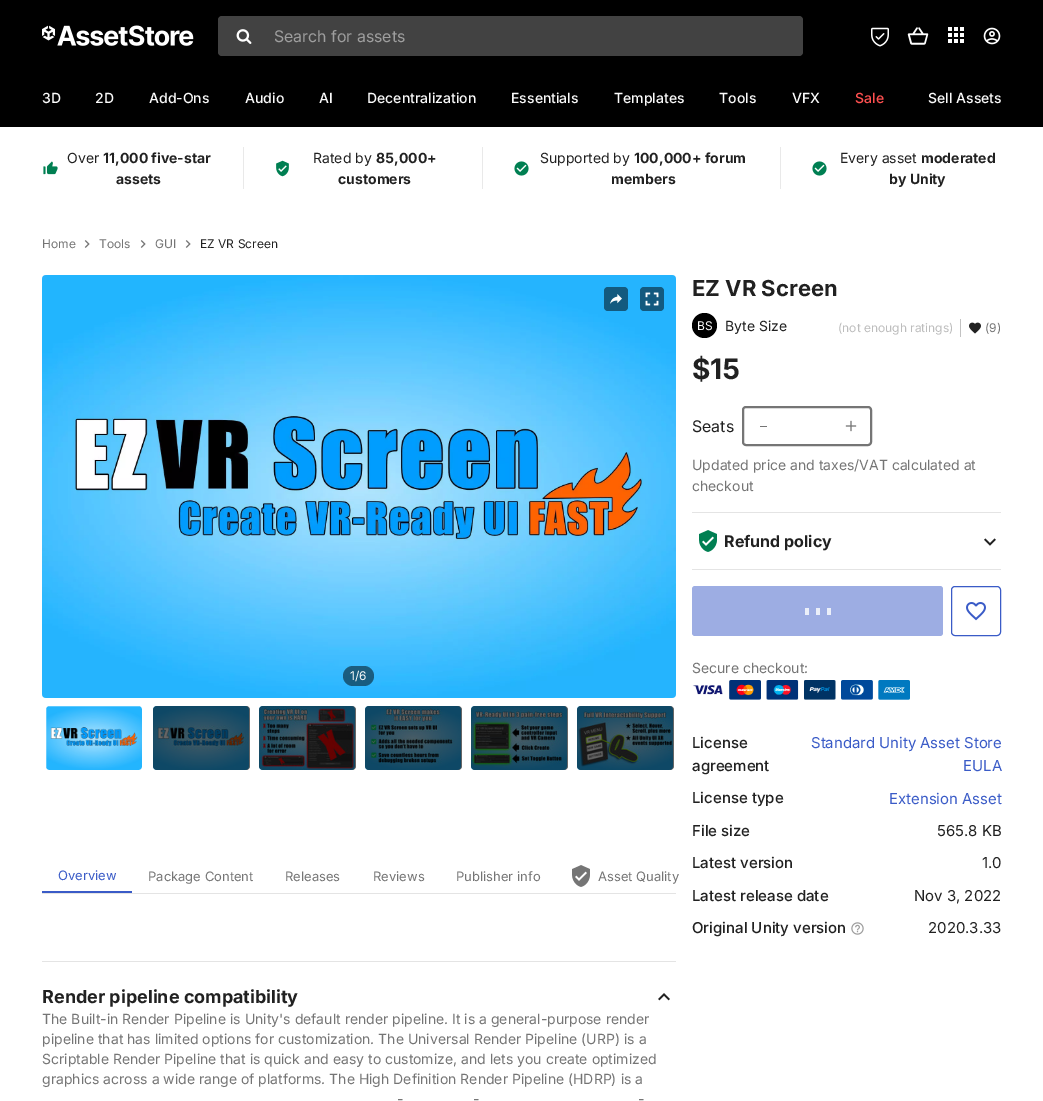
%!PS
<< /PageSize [1043 1101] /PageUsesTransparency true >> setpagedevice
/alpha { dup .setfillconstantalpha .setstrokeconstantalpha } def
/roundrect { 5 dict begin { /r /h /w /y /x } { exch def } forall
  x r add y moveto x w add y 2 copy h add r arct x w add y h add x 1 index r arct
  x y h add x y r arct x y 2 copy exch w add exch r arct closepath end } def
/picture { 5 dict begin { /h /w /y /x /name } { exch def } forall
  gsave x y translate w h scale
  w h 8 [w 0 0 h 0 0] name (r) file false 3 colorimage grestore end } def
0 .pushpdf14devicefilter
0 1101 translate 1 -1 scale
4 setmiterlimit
1 setgray
0 0 1043 1101 rectfill
0 setgray
0 0 1043 127 rectfill
(img1.rgb) 42 25 152 21 picture
0.259 setgray
218 16 585 40 4 roundrect fill
(img2.rgb) 236 29 16 15 picture
/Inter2-Regular [16 0 0 -16 0 0] selectfont
0.62 setgray
274 42 moveto (Search for assets) show
(img3.rgb) 871 27 18 20 picture
(img4.rgb) 907 27 22 18 picture
(img5.rgb) 948 27 16 16 picture
(img6.rgb) 983 27 18 18 picture
/Inter-Medium [14 0 0 -14 0 0] selectfont
0.98 setgray
42 103 moveto (3D) show
95 103 moveto (2D) show
149 103 moveto (Add-Ons) show
245 103 moveto (Audio) show
319 103 moveto (AI) show
367 103 moveto (Decentralization) show
511 103 moveto (Essentials) show
614 103 moveto (Templates) show
719 103 moveto (Tools) show
792 103 moveto (VFX) show
1 0.314 0.314 setrgbcolor
855 103 moveto (Sale) show
0.98 setgray
928 103 moveto (Sell Assets) show
(img7.rgb) 43 161 15 14 picture
/Inter-Regular [14 0 0 -14 0 0] selectfont
0.129 setgray
67 163 moveto (Over) show
/Inter-Bold [14 0 0 -14 0 0] selectfont
103 163 moveto (11,000 five-star) show
116 184 moveto (assets) show
0.914 setgray
482 147 1 42 rectfill
243 147 1 42 rectfill
(img8.rgb) 276 160 13 17 picture
/Inter-Regular [14 0 0 -14 0 0] selectfont
0.129 setgray
313 163 moveto (Rated by) show
/Inter-Bold [14 0 0 -14 0 0] selectfont
376 163 moveto (85,000+) show
338 184 moveto (customers) show
0.914 setgray
780 147 1 42 rectfill
(img9.rgb) 514 161 15 15 picture
/Inter-Regular [14 0 0 -14 0 0] selectfont
0.129 setgray
540 163 moveto (Supported by) show
/Inter-Bold [14 0 0 -14 0 0] selectfont
634 163 moveto (100,000+ forum) show
611 184 moveto (members) show
(img9.rgb) 812 161 15 15 picture
/Inter-Regular [14 0 0 -14 0 0] selectfont
840 163 moveto (Every asset) show
/Inter-Bold [14 0 0 -14 0 0] selectfont
921 163 moveto (moderated) show
889 184 moveto (by Unity) show
/Inter-Regular [12 0 0 -12 0 0] selectfont
0.459 setgray
42 248 moveto (Home) show
(img10.rgb) 84 240 6 8 picture
99 248 moveto (Tools) show
(img10.rgb) 140 240 6 8 picture
155 248 moveto (GUI) show
(img10.rgb) 185 240 6 8 picture
0.129 setgray
200 248 moveto (EZ VR Screen) show
(img13.rgb) 42 275 634 423 picture
0.075 0.353 0.498 setrgbcolor
604 287 24 24 4 roundrect fill
(img11.rgb) 610 294 12 10 picture
640 287 24 24 4 roundrect fill
(img12.rgb) 645 292 14 14 picture
0.5 alpha
0 setgray
343 666 31 20 10 roundrect fill
1 alpha
0.98 setgray
350 680 moveto (1/6) show
(img14.rgb) 46 706 96 64 picture
1 setgray
45.5 705.5 97 65 3.5 roundrect stroke
(img15.rgb) 153 706 96 64 picture
0.6 alpha
0 setgray
153 706 97 64 4 roundrect fill
1 alpha
(img16.rgb) 259 706 96 64 picture
0.6 alpha
259 706 97 64 4 roundrect fill
1 alpha
(img17.rgb) 365 706 96 64 picture
0.6 alpha
365 706 97 64 4 roundrect fill
1 alpha
(img18.rgb) 471 706 96 64 picture
0.6 alpha
471 706 97 64 4 roundrect fill
1 alpha
(img19.rgb) 577 706 96 64 picture
0.6 alpha
577 706 97 64 4 roundrect fill
1 alpha
0.894 setgray
42 893 634 1 rectfill
0.227 0.357 0.78 setrgbcolor
42 891 90 2 rectfill
/Inter-Regular [13 0 0 -13 0 0] selectfont
58 880 moveto (Overview) show
0.459 setgray
148 881 moveto (Package Content) show
285 881 moveto (Releases) show
373 881 moveto (Reviews) show
456 881 moveto (Publisher info) show
(img20.rgb) 572 865 18 22 picture
598 881 moveto (Asset Quality) show
0.894 setgray
42 961 634 1 rectfill
/Inter-Bold [18 0 0 -18 0 0] selectfont
0.129 setgray
42 1003 moveto (Render pipeline compatibility) show
(img21.rgb) 658 993 12 8 picture
/Inter-Regular [14 0 0 -14 0 0] selectfont
0.459 setgray
42 1024 moveto (The Built-in Render Pipeline is Unity's default render pipeline. It is a general-purpose render) show
42 1044 moveto (pipeline that has limited options for customization. The Universal Render Pipeline \(URP\) is a) show
42 1064 moveto (Scriptable Render Pipeline that is quick and easy to customize, and lets you create optimized) show
42 1084 moveto (graphics across a wide range of platforms. The High Definition Render Pipeline \(HDRP\) is a) show
397 1104 moveto (-) show
473 1104 moveto (-) show
638 1104 moveto (-) show
/Inter-Bold [22 0 0 -22 0 0] selectfont
0.129 setgray
692 296 moveto (EZ VR Screen) show
0 setgray
newpath 704.5 325.5 12.5 0 360 arc closepath fill
/Inter-Regular [12 0 0 -12 0 0] selectfont
0.98 setgray
697 330 moveto (BS) show
/Inter-Regular [14 0 0 -14 0 0] selectfont
0.129 setgray
725 331 moveto (Byte Size) show
/Inter-Regular [12 0 0 -12 0 0] selectfont
0.741 setgray
838 332 moveto (\(not enough ratings\)) show
0.761 setgray
960 319 1 18 rectfill
(img22.rgb) 969 322 12 12 picture
0.459 setgray
985 332 moveto (\(9\)) show
/Inter-Bold [28 0 0 -28 0 0] selectfont
0.129 setgray
692 379 moveto ($15) show
/Inter2-Regular [16 0 0 -16 0 0] selectfont
692 432 moveto (Seats) show
0.459 setgray
2 setlinewidth
743 407 128 38 3 roundrect stroke
760 426 7 1 rectfill
(img23.rgb) 845 420 12 12 picture
/Inter-Regular [14 0 0 -14 0 0] selectfont
692 470 moveto (Updated price and taxes/VAT calculated at) show
692 491 moveto (checkout) show
0.894 setgray
692 512 309 1 rectfill
692 569 309 1 rectfill
(img24.rgb) 699 530 18 22 picture
/Inter-Bold [16 0 0 -16 0 0] selectfont
0.129 setgray
724 547 moveto (Refund policy) show
(img25.rgb) 984 538 12 8 picture
0.616 0.678 0.89 setrgbcolor
692 586 251 50 3 roundrect fill
0.922 0.937 0.976 setrgbcolor
805 608 4 7 rectfill
816 608 4 7 rectfill
827 608 4 7 rectfill
0.227 0.357 0.78 setrgbcolor
1 setlinewidth
951.5 586.5 49 49 3.5 roundrect stroke
(img26.rgb) 966 602 20 19 picture
/Inter-Regular [14 0 0 -14 0 0] selectfont
0.459 setgray
692 673 moveto (Secure checkout:) show
(img27.rgb) 692 680 218 20 picture
/Inter-Medium [15 0 0 -15 0 0] selectfont
0.129 setgray
692 748 moveto (License) show
692 771 moveto (agreement) show
/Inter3-Regular [15 0 0 -15 0 0] selectfont
0.227 0.357 0.78 setrgbcolor
811 748 moveto (Standard Unity Asset Store) show
963 771 moveto (EULA) show
/Inter-Medium [15 0 0 -15 0 0] selectfont
0.129 setgray
692 803 moveto (License type) show
/Inter3-Regular [15 0 0 -15 0 0] selectfont
0.227 0.357 0.78 setrgbcolor
889 804 moveto (Extension Asset) show
/Inter-Medium [15 0 0 -15 0 0] selectfont
0.129 setgray
692 836 moveto (File size) show
/Inter3-Regular [15 0 0 -15 0 0] selectfont
937 836 moveto (565.8 KB) show
/Inter-Medium [15 0 0 -15 0 0] selectfont
692 868 moveto (Latest version) show
/Inter3-Regular [15 0 0 -15 0 0] selectfont
982 868 moveto (1.0) show
/Inter-Medium [15 0 0 -15 0 0] selectfont
692 901 moveto (Latest release date) show
/Inter3-Regular [15 0 0 -15 0 0] selectfont
914 901 moveto (Nov 3, 2022) show
/Inter-Medium [15 0 0 -15 0 0] selectfont
692 933 moveto (Original Unity version) show
(img28.rgb) 851 922 13 13 picture
/Inter3-Regular [15 0 0 -15 0 0] selectfont
928 933 moveto (2020.3.33) show
.poppdf14devicefilter showpage
